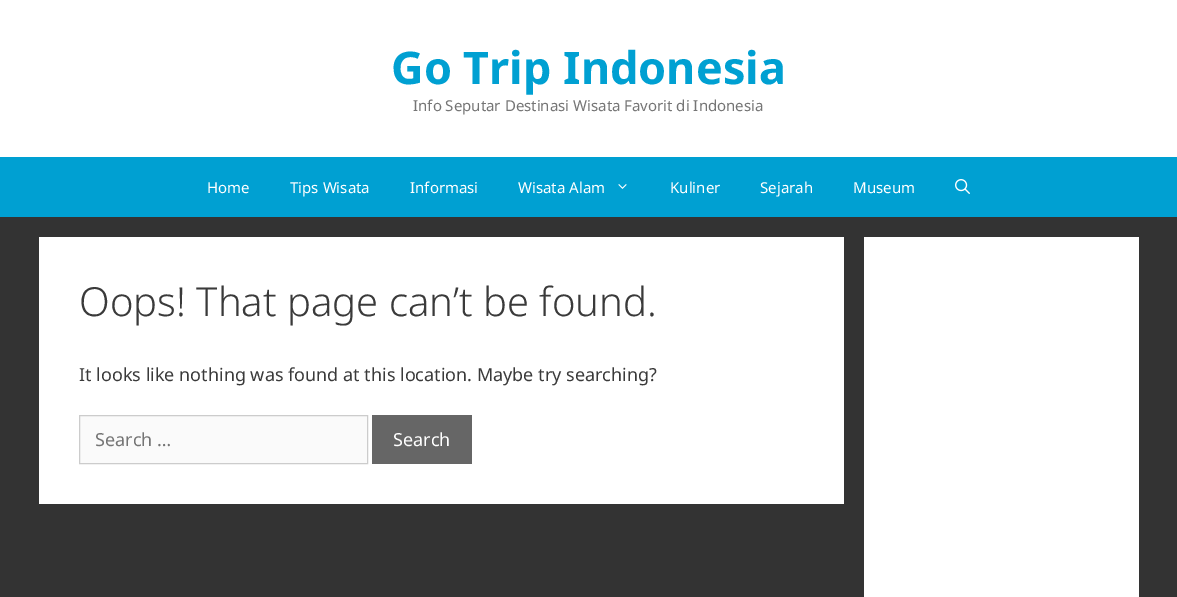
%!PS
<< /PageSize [1177 597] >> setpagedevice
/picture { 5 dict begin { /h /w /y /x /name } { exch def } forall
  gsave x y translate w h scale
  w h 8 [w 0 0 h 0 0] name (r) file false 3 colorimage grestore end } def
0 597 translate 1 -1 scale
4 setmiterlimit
0.2 setgray
0 0 1177 597 rectfill
1 setgray
0 0 1177 157 rectfill
/NotoSans-Bold [45 0 0 -45 0 0] selectfont
0 0.627 0.824 setrgbcolor
391 84 moveto (Go Trip Indonesia) show
/NotoSans-Regular [15 0 0 -15 0 0] selectfont
0.459 setgray
413 111 moveto (Info Seputar Destinasi Wisata Favorit di Indonesia) show
0 0.627 0.824 setrgbcolor
0 157 1177 60 rectfill
1 setgray
207 193 moveto (Home) show
290 193 moveto (Tips Wisata) show
410 193 moveto (Informasi) show
518 193 moveto (Wisata Alam) show
(img1.rgb) 618 184 9 5 picture
670 193 moveto (Kuliner) show
760 193 moveto (Sejarah) show
853 193 moveto (Museum) show
(img2.rgb) 955 179 15 15 picture
39 237 805 267 rectfill
/NotoSans-Light [40 0 0 -40 0 0] selectfont
0.227 setgray
79 316 moveto (Oops! That page can’t be found.) show
/NotoSans-Regular [18 0 0 -18 0 0] selectfont
79 381 moveto (It looks like nothing was found at this location. Maybe try searching?) show
0.98 setgray
newpath 79.5 415.5 moveto 367.5 415.5 lineto 367.5 463.5 lineto 79.5 463.5 lineto closepath gsave fill grestore
0.8 setgray
stroke
0.459 setgray
95 446 moveto (Search …) show
0.4 setgray
372 415 100 49 rectfill
1 setgray
393 446 moveto (Search) show
864 237 275 360 rectfill
showpage
